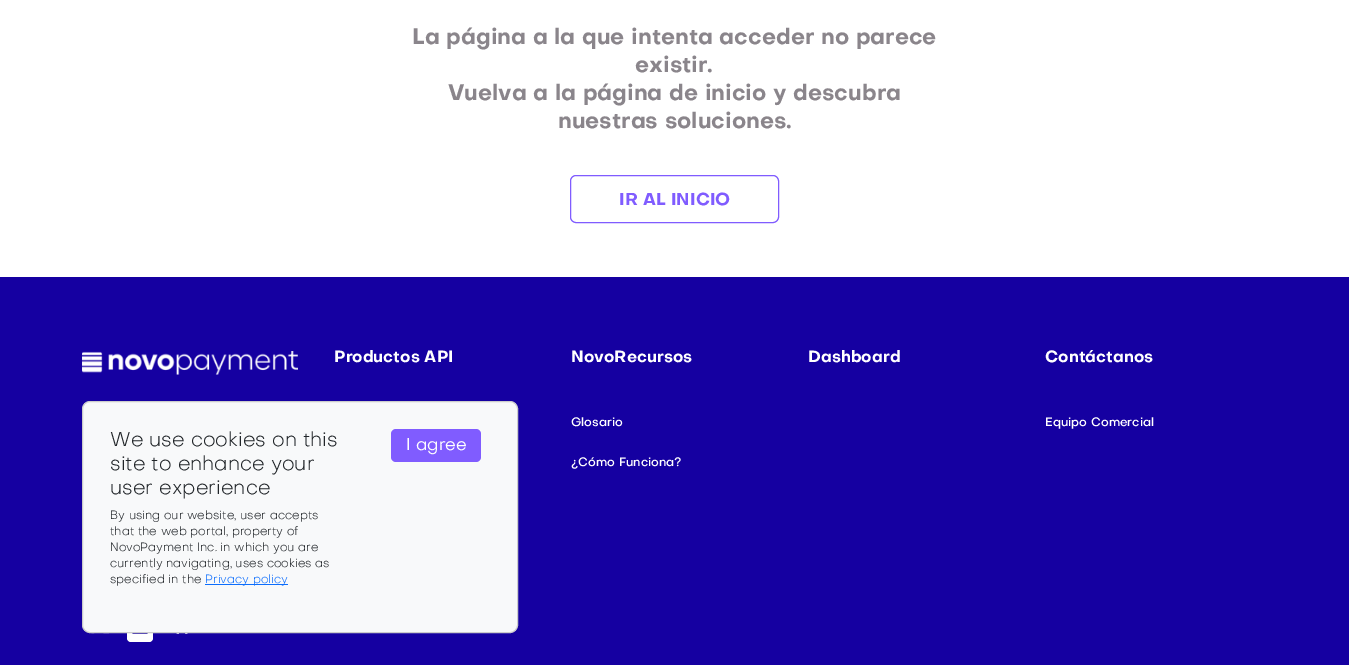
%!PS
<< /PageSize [1349 665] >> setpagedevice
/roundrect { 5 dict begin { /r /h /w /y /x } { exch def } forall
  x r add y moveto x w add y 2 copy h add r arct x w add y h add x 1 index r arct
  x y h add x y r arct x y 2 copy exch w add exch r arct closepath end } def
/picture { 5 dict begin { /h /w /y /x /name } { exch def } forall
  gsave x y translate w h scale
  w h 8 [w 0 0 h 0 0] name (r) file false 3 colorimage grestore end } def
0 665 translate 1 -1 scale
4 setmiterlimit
1 setgray
0 0 1349 665 rectfill
/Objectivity-Bold [22 0 0 -22 0 0] selectfont
0.541 0.522 0.545 setrgbcolor
412 44 moveto (La página a la que intenta acceder no parece) show
635 72 moveto (existir.) show
448 100 moveto (Vuelva a la página de inicio y descubra) show
558 128 moveto (nuestras soluciones.) show
0.502 0.361 1 setrgbcolor
570.5 175.5 208 47 5.5 roundrect stroke
/Objectivity-Bold [17 0 0 -17 0 0] selectfont
619 205 moveto (IR AL INICIO) show
0.082 0 0.631 setrgbcolor
0 277 1349 388 rectfill
(img1.rgb) 82 351 216 24 picture
(img2.rgb) 91 633 18 1 picture
1 setgray
127 605 26 37 4 roundrect fill
(img3.rgb) 132 633 16 1 picture
(img4.rgb) 176 633 12 1 picture
/Objectivity-Bold [16 0 0 -16 0 0] selectfont
334 362 moveto (Productos API) show
571 362 moveto (NovoRecursos) show
/Objectivity-Medium [12 0 0 -12 0 0] selectfont
571 426 moveto (Glosario) show
571 466 moveto (¿Cómo Funciona?) show
/Objectivity-Bold [16 0 0 -16 0 0] selectfont
808 362 moveto (Dashboard) show
1045 362 moveto (Contáctanos) show
/Objectivity-Medium [12 0 0 -12 0 0] selectfont
1045 426 moveto (Equipo Comercial) show
0.973 0.976 0.98 setrgbcolor
82.5 401.5 435 231 7.5 roundrect gsave fill grestore
0.8 setgray
stroke
/Objectivity-Light [20 0 0 -20 0 0] selectfont
0.129 0.145 0.161 setrgbcolor
110 446 moveto (We use cookies on this) show
110 470 moveto (site to enhance your) show
110 494 moveto (user experience) show
/Objectivity-Light [12 0 0 -12 0 0] selectfont
110 519 moveto (By using our website, user accepts) show
110 535 moveto (that the web portal, property of) show
110 551 moveto (NovoPayment Inc. in which you are) show
110 567 moveto (currently navigating, uses cookies as) show
110 583 moveto (specified in the) show
0.051 0.431 0.992 setrgbcolor
205 584 83 1 rectfill
205 583 moveto (Privacy policy) show
0.502 0.361 1 setrgbcolor
391 429 90 33 5 roundrect fill
/Objectivity-Regular [17 0 0 -17 0 0] selectfont
1 setgray
406 450 moveto (I agree) show
showpage
